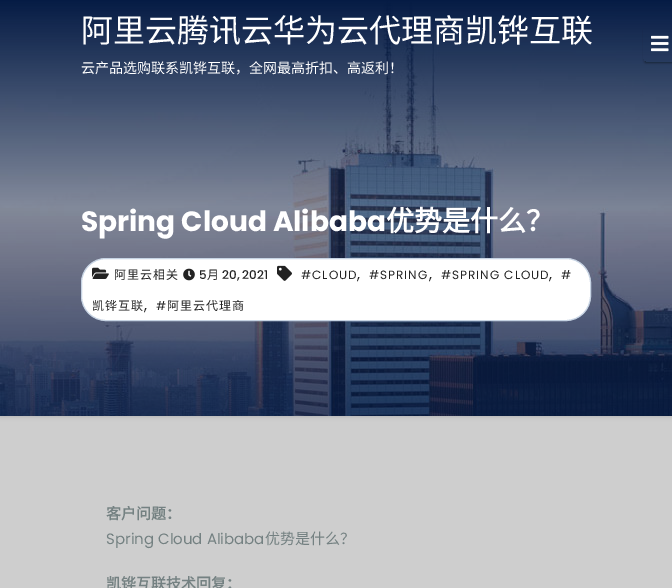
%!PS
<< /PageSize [672 588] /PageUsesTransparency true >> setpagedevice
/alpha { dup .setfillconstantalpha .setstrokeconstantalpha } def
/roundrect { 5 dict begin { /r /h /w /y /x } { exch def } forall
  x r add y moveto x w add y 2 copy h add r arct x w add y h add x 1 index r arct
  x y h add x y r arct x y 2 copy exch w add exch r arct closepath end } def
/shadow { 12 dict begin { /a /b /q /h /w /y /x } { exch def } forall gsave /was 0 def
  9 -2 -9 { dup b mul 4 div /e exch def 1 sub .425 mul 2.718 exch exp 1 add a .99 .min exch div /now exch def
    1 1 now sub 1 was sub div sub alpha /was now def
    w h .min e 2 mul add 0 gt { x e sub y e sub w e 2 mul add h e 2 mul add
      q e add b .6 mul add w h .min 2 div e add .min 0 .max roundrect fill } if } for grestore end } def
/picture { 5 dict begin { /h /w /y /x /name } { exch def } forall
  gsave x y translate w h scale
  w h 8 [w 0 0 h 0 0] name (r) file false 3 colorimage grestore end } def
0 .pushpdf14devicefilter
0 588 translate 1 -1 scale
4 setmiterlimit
0.808 setgray
0 0 672 588 rectfill
0.667 setgray
0 0 672 416 0 2.5 1 shadow
(img2.rgb) 0 0 672 416 picture
/NotoSansCJKSC-Regular [32 0 0 -32 0 0] selectfont
1 setgray
81 42 moveto (阿里云腾讯云华为云代理商凯铧互联) show
/NotoSansCJKSC-Regular [14 0 0 -14 0 0] selectfont
81 73 moveto (云产品选购联系凯铧互联，全网最高折扣、高返利！) show
gsave
newpath 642 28 moveto 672 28 lineto 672 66 lineto 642 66 lineto closepath 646 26 moveto 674 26 lineto 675.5 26 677 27.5 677 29 curveto 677 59 lineto 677 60.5 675.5 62 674 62 curveto 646 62 lineto 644.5 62 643 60.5 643 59 curveto 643 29 lineto 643 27.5 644.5 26 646 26 curveto closepath eoclip newpath
0 setgray
645 31 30 32 1 0.5 0.2 shadow
grestore
gsave
newpath 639 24 moveto 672 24 lineto 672 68 lineto 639 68 lineto closepath 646 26 moveto 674 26 lineto 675.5 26 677 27.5 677 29 curveto 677 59 lineto 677 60.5 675.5 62 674 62 curveto 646 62 lineto 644.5 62 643 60.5 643 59 curveto 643 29 lineto 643 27.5 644.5 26 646 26 curveto closepath eoclip newpath
0 setgray
643 28 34 36 3 1 0.14 shadow
grestore
(img1.rgb) 651 35 18 17 picture
/Poppins-Bold [28 0 0 -28 0 0] selectfont
81 231 moveto (Spring Cloud Alibaba) show
/NotoSansCJKSC-Bold [28 0 0 -28 0 0] selectfont
386 231 moveto (优势是什么？) show
81.5 258.5 509 62 24.5 roundrect gsave fill grestore
0.776 0.827 0.89 setrgbcolor
stroke
(img3.rgb) 92 267 17 12 picture
/NotoSansCJKSC-Regular [12 0 0 -12 0 0] selectfont
0.133 setgray
114 279 moveto 1 0 (阿里云相关) ashow
(img4.rgb) 183 268 12 13 picture
/Poppins-Medium [12 0 0 -12 0 0] selectfont
199 279 moveto (5) show
/NotoSansCJKSC-Regular [12 0 0 -12 0 0] selectfont
207 279 moveto (月) show
/Poppins-Medium [12 0 0 -12 0 0] selectfont
222 279 moveto (20, 2021) show
(img5.rgb) 277 265 15 16 picture
/Poppins-Regular [12 0 0 -12 0 0] selectfont
301 279 moveto 1 0 (#CLOUD) ashow
369 279 moveto 1 0 (#SPRING) ashow
441 279 moveto 1 0 (#SPRING CLOUD) ashow
561 279 moveto 1 0 (#) ashow
/Poppins-Regular [15 0 0 -15 0 0] selectfont
357 279 moveto (,) show
429 279 moveto (,) show
549 279 moveto (,) show
/NotoSansCJKSC-Regular [12 0 0 -12 0 0] selectfont
92 310 moveto 1 0 (凯铧互联) ashow
/Poppins-Regular [12 0 0 -12 0 0] selectfont
156 310 moveto 1 0 (#) ashow
/NotoSansCJKSC-Regular [12 0 0 -12 0 0] selectfont
167 310 moveto 1 0 (阿里云代理商) ashow
/Poppins-Regular [15 0 0 -15 0 0] selectfont
144 310 moveto (,) show
/NotoSansCJKSC-Bold [15 0 0 -15 0 0] selectfont
0.455 0.506 0.51 setrgbcolor
106 519 moveto (客户问题：) show
/Poppins-Regular [15 0 0 -15 0 0] selectfont
106 544 moveto (Spring Cloud Alibaba) show
/NotoSansCJKSC-Regular [15 0 0 -15 0 0] selectfont
265 544 moveto (优势是什么？) show
/NotoSansCJKSC-Bold [15 0 0 -15 0 0] selectfont
106 589 moveto (凯铧互联技术回复：) show
.poppdf14devicefilter showpage
